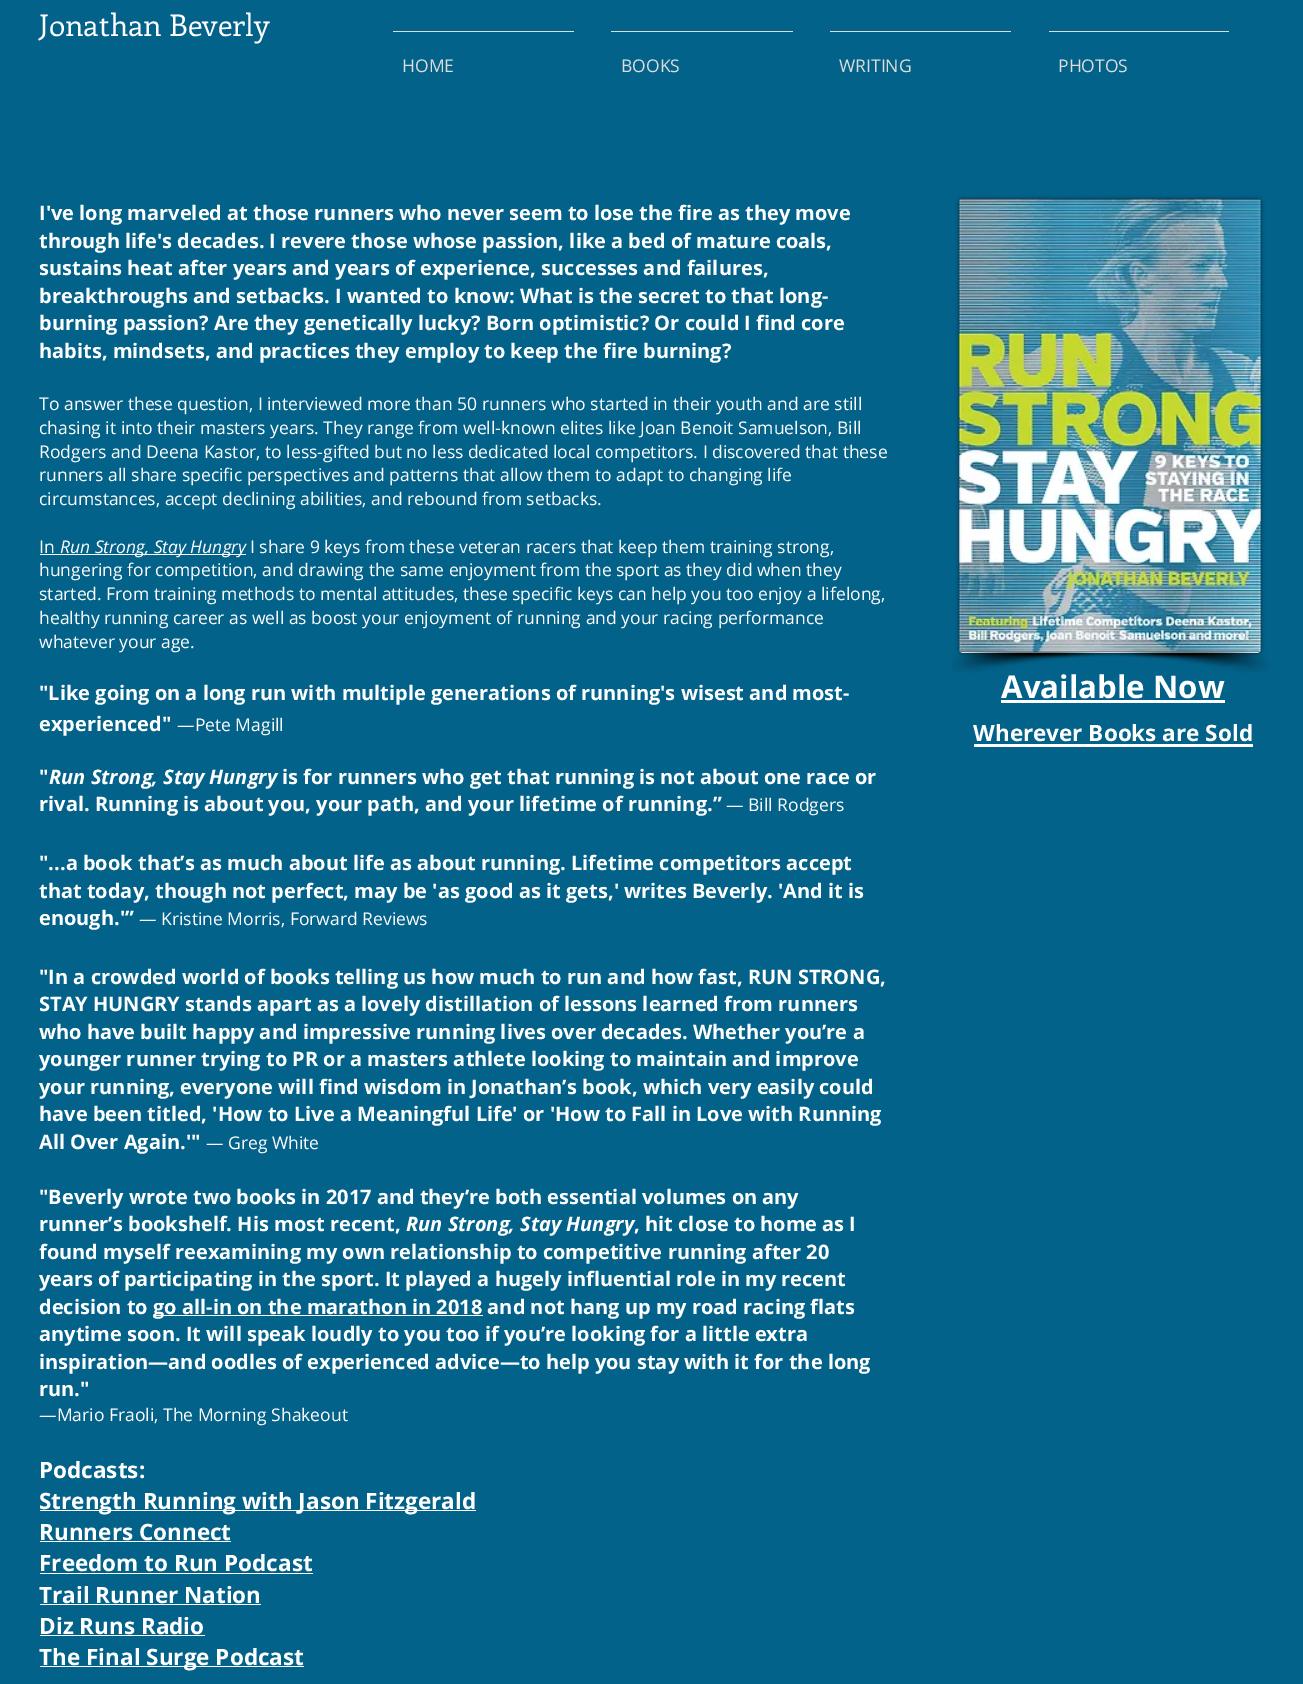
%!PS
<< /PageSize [1303 1684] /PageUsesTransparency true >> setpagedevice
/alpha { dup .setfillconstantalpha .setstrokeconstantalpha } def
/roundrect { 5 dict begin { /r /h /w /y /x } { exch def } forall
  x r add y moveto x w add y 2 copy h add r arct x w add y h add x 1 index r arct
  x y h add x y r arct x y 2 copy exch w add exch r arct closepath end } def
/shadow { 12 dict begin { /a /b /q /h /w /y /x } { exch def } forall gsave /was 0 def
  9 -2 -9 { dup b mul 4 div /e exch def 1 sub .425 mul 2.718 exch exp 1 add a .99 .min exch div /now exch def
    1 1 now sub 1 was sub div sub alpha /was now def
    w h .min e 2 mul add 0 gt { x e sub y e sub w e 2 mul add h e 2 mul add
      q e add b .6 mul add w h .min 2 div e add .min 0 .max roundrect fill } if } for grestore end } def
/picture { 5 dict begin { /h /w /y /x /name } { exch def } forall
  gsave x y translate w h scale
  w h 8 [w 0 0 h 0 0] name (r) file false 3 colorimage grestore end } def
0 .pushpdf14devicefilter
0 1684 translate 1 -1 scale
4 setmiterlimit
0.012 0.384 0.541 setrgbcolor
0 0 1303 1684 rectfill
/Enriqueta-Regular [30 0 0 -30 0 0] selectfont
1 setgray
39 36 moveto (Jonathan Beverly) show
0.867 setgray
393 31 181 1 rectfill
/OpenSans-Regular [17.5 0 0 -17.5 0 0] selectfont
402 72 moveto (HOME) show
611 31 182 1 rectfill
621 72 moveto (BOOKS) show
830 31 181 1 rectfill
839 72 moveto (WRITING) show
1049 31 180 1 rectfill
1058 72 moveto (PHOTOS) show
/OpenSans-Bold [20 0 0 -20 0 0] selectfont
1 setgray
39 220 moveto (I've long marveled at those runners who never seem to lose the fire as they move) show
39 248 moveto (through life's decades. I revere those whose passion, like a bed of mature coals,) show
39 275 moveto (sustains heat after years and years of experience, successes and failures,) show
39 303 moveto (breakthroughs and setbacks. I wanted to know: What is the secret to that long-) show
39 330 moveto (burning passion? Are they genetically lucky? Born optimistic? Or could I find core) show
39 358 moveto (habits, mindsets, and practices they employ to keep the fire burning?) show
/OpenSans-Regular [17.5 0 0 -17.5 0 0] selectfont
39 410 moveto (To answer these question, I interviewed more than 50 runners who started in their youth and are still) show
39 434 moveto (chasing it into their masters years. They range from well-known elites like Joan Benoit Samuelson, Bill) show
39 458 moveto (Rodgers and Deena Kastor, to less-gifted but no less dedicated local competitors. I discovered that these) show
39 481 moveto (runners all share specific perspectives and patterns that allow them to adapt to changing life) show
39 505 moveto (circumstances, accept declining abilities, and rebound from setbacks.) show
39 553 moveto (In) show
40 554 206 1 rectfill
/OpenSans-Italic [17.5 0 0 -17.5 0 0] selectfont
60 553 moveto (Run Strong, Stay Hungry) show
/OpenSans-Regular [17.5 0 0 -17.5 0 0] selectfont
250 553 moveto (I share 9 keys from these veteran racers that keep them training strong,) show
39 576 moveto (hungering for competition, and drawing the same enjoyment from the sport as they did when they) show
39 600 moveto (started. From training methods to mental attitudes, these specific keys can help you too enjoy a lifelong,) show
39 624 moveto (healthy running career as well as boost your enjoyment of running and your racing performance) show
39 648 moveto (whatever your age.) show
/OpenSans-Bold [20 0 0 -20 0 0] selectfont
39 700 moveto ("Like going on a long run with multiple generations of running's wisest and most-) show
39 731 moveto (experienced") show
/OpenSans-Regular [17.5 0 0 -17.5 0 0] selectfont
177 731 moveto (—Pete Magill) show
/OpenSans-Bold [20 0 0 -20 0 0] selectfont
39 784 moveto (") show
/OpenSans-BoldItalic [20 0 0 -20 0 0] selectfont
49 784 moveto (Run Strong, Stay Hungry) show
/OpenSans-Bold [20 0 0 -20 0 0] selectfont
282 784 moveto (is for runners who get that running is not about one race or) show
39 811 moveto (rival. Running is about you, your path, and your lifetime of running.”) show
/OpenSans-Regular [17.5 0 0 -17.5 0 0] selectfont
726 811 moveto (― Bill Rodgers) show
/OpenSans-Bold [20 0 0 -20 0 0] selectfont
39 870 moveto ("...a book that’s as much about life as about running. Lifetime competitors accept) show
39 898 moveto (that today, though not perfect, may be 'as good as it gets,' writes Beverly. 'And it is) show
39 925 moveto (enough.'”) show
/OpenSans-Regular [17.5 0 0 -17.5 0 0] selectfont
139 925 moveto (— Kristine Morris, Forward Reviews) show
/OpenSans-Bold [20 0 0 -20 0 0] selectfont
39 984 moveto ("In a crowded world of books telling us how much to run and how fast, RUN STRONG,) show
39 1011 moveto (STAY HUNGRY stands apart as a lovely distillation of lessons learned from runners) show
39 1039 moveto (who have built happy and impressive running lives over decades. Whether you’re a) show
39 1066 moveto (younger runner trying to PR or a masters athlete looking to maintain and improve) show
39 1094 moveto (your running, everyone will find wisdom in Jonathan’s book, which very easily could) show
39 1121 moveto (have been titled, 'How to Live a Meaningful Life' or 'How to Fall in Love with Running) show
39 1149 moveto (All Over Again.'") show
/OpenSans-Regular [17.5 0 0 -17.5 0 0] selectfont
206 1149 moveto (— Greg White) show
/OpenSans-Bold [20 0 0 -20 0 0] selectfont
39 1204 moveto ("Beverly wrote two books in 2017 and they’re both essential volumes on any) show
39 1231 moveto (runner’s bookshelf. His most recent,) show
/OpenSans-BoldItalic [20 0 0 -20 0 0] selectfont
406 1231 moveto (Run Strong, Stay Hungry) show
/OpenSans-Bold [20 0 0 -20 0 0] selectfont
634 1231 moveto (, hit close to home as I) show
39 1259 moveto (found myself reexamining my own relationship to competitive running after 20) show
39 1286 moveto (years of participating in the sport. It played a hugely influential role in my recent) show
39 1314 moveto (decision to) show
154 1315 329 1 rectfill
153 1314 moveto (go all-in on the marathon in 2018 and not hang up my road racing flats) show
39 1341 moveto (anytime soon. It will speak loudly to you too if you’re looking for a little extra) show
39 1369 moveto (inspiration—and oodles of experienced advice—to help you stay with it for the long) show
39 1396 moveto (run.") show
/OpenSans-Regular [17.5 0 0 -17.5 0 0] selectfont
39 1421 moveto (—Mario Fraoli, The Morning Shakeout) show
/OpenSans-Bold [22.5 0 0 -22.5 0 0] selectfont
39 1478 moveto (Podcasts:) show
40 1510 436 1 rectfill
39 1509 moveto (Strength Running with Jason Fitzgerald) show
39 1540 moveto (Runners Connect) show
40 1541 191 1 rectfill
39 1571 moveto (Freedom to Run Podcast) show
40 1573 273 1 rectfill
39 1603 moveto (Trail Runner Nation) show
40 1604 221 1 rectfill
39 1634 moveto (Diz Runs Radio) show
40 1635 165 1 rectfill
40 1666 264 1 rectfill
39 1665 moveto (The Final Surge Podcast) show
0 setgray
959 199 302 454 4 2 0.5 shadow
1 setgray
959 199 302 454 4 roundrect fill
(img1.rgb) 959 199 302 454 picture
(img2.rgb) 951 652 176 21 picture
(img3.rgb) 1096 652 173 21 picture
/OpenSans-Bold [31.25 0 0 -31.25 0 0] selectfont
1001 698 moveto (Available Now) show
1001 700 224 3 rectfill
/OpenSans-Bold [22.5 0 0 -22.5 0 0] selectfont
973 741 moveto (Wherever Books are Sold) show
974 744 279 3 rectfill
.poppdf14devicefilter showpage
